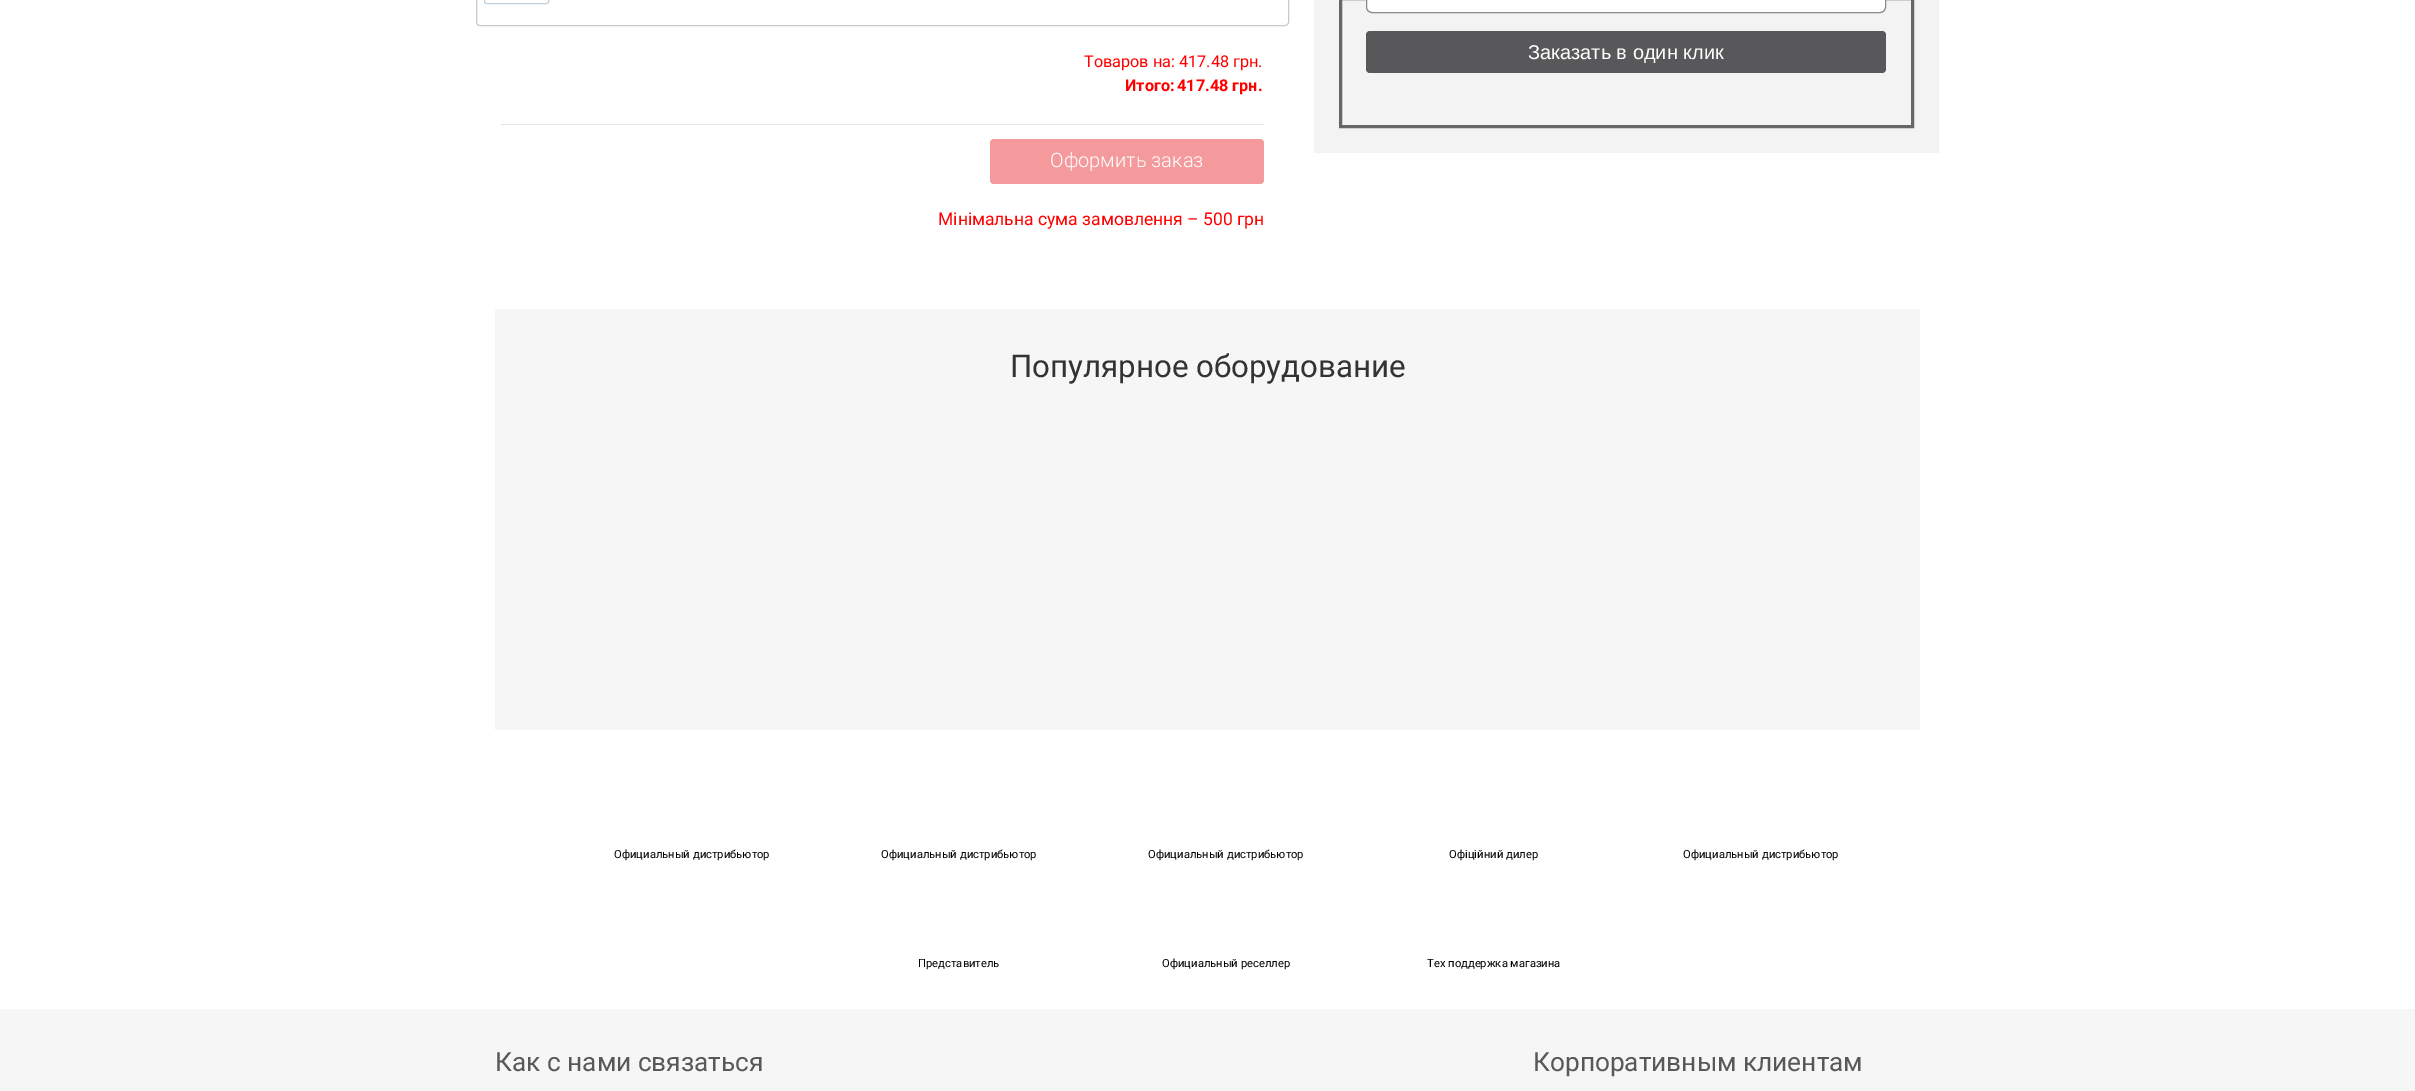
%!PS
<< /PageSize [2415 1091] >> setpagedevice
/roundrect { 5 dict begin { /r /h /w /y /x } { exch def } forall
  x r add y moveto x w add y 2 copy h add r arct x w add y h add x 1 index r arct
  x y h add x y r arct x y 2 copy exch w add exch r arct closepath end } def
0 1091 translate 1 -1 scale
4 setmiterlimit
1 setgray
0 0 2415 1091 rectfill
0.788 setgray
476.5 -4.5 812 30 3.5 roundrect stroke
0.753 0.812 0.855 setrgbcolor
484.5 -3.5 64 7 2 roundrect stroke
/Roboto-Regular [16.25 0 0 -16.25 0 0] selectfont
1 0 0 setrgbcolor
1084 67 moveto (Товаров на: 417.48 грн.) show
/Roboto-Bold [16.25 0 0 -16.25 0 0] selectfont
1125 91 moveto (Итого:) show
1177 91 moveto (417.48 грн.) show
0.894 0.902 0.91 setrgbcolor
501 124 763 1 rectfill
0.957 0.604 0.612 setrgbcolor
990 139 274 45 4 roundrect fill
/Roboto-Light [20 0 0 -20 0 0] selectfont
1 setgray
1050 167 moveto (Оформить заказ) show
/Roboto-Regular [17.5 0 0 -17.5 0 0] selectfont
1 0 0 setrgbcolor
938 225 moveto (Мінімальна сума замовлення – 500 грн) show
0.953 setgray
1314 0 625 153 rectfill
0.4 setgray
3 setlinewidth
1340.5 -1.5 572 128 rectstroke
1 setgray
1366.5 -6.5 519 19 5.5 roundrect gsave fill grestore
0.537 setgray
1 setlinewidth
stroke
0.345 0.345 0.353 setrgbcolor
1366 31 520 42 4 roundrect fill
/LiberationSans-Regular [20 0 0 -20 0 0] selectfont
1 setgray
1528 59 moveto (Заказать в один клик) show
0.965 setgray
495 309 1425 421 rectfill
/Roboto-Regular [31.25 0 0 -31.25 0 0] selectfont
0.2 setgray
1010 377 moveto (Популярное оборудование) show
/Roboto-Regular [11.25 0 0 -11.25 0 0] selectfont
0 setgray
614 858 moveto (Официальный дистрибьютор) show
881 858 moveto (Официальный дистрибьютор) show
1148 858 moveto (Официальный дистрибьютор) show
1449 858 moveto (Офіційний дилер) show
1683 858 moveto (Официальный дистрибьютор) show
918 967 moveto (Представитель) show
1162 967 moveto (Официальный реселлер) show
1427 967 moveto (Тех поддержка магазина) show
0.965 setgray
0 1009 2415 82 rectfill
/Roboto-Regular [26.25 0 0 -26.25 0 0] selectfont
0.345 0.345 0.353 setrgbcolor
495 1071 moveto (Как с нами связаться) show
1533 1071 moveto (Корпоративным клиентам) show
showpage
